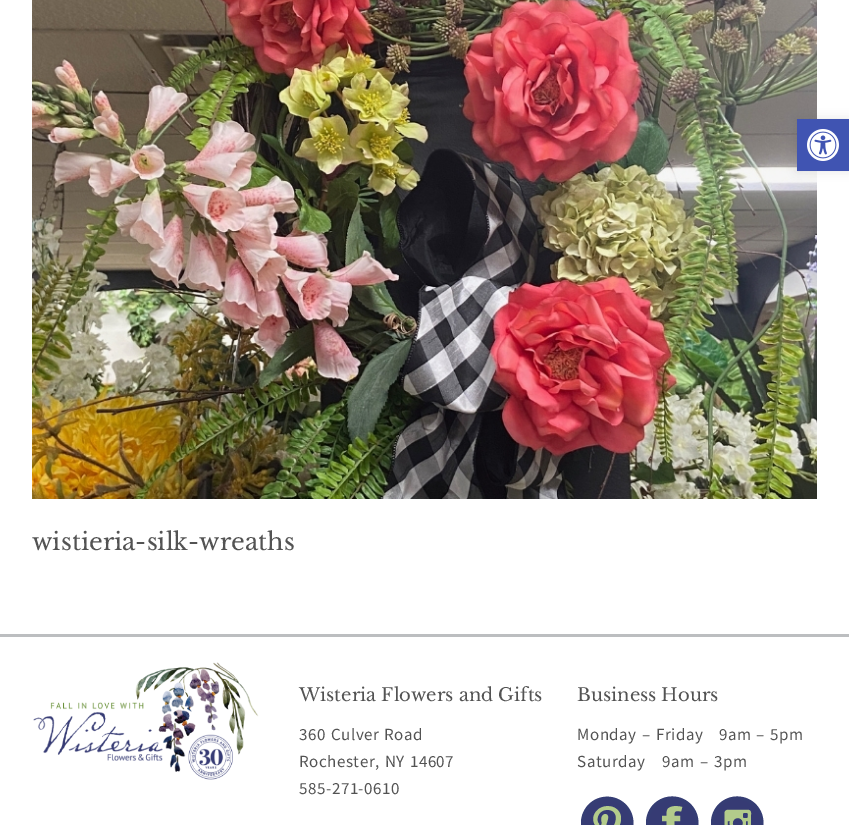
%!PS
<< /PageSize [849 825] /PageUsesTransparency true >> setpagedevice
/alpha { dup .setfillconstantalpha .setstrokeconstantalpha } def
/roundrect { 5 dict begin { /r /h /w /y /x } { exch def } forall
  x r add y moveto x w add y 2 copy h add r arct x w add y h add x 1 index r arct
  x y h add x y r arct x y 2 copy exch w add exch r arct closepath end } def
/shadow { 12 dict begin { /a /b /q /h /w /y /x } { exch def } forall gsave /was 0 def
  9 -2 -9 { dup b mul 4 div /e exch def 1 sub .425 mul 2.718 exch exp 1 add a .99 .min exch div /now exch def
    1 1 now sub 1 was sub div sub alpha /was now def
    w h .min e 2 mul add 0 gt { x e sub y e sub w e 2 mul add h e 2 mul add
      q e add b .6 mul add w h .min 2 div e add .min 0 .max roundrect fill } if } for grestore end } def
/picture { 5 dict begin { /h /w /y /x /name } { exch def } forall
  gsave x y translate w h scale
  w h 8 [w 0 0 h 0 0] name (r) file false 3 colorimage grestore end } def
0 .pushpdf14devicefilter
0 825 translate 1 -1 scale
4 setmiterlimit
1 setgray
0 0 849 825 rectfill
(img2.rgb) 32 0 785 499 picture
0 setgray
797 119 52 52 0 5 0.1 shadow
0.251 0.329 0.698 setrgbcolor
797 119 52 52 rectfill
(img1.rgb) 807 129 32 32 picture
/LibreBaskerville-Regular [24 0 0 -24 0 0] selectfont
0.325 setgray
32 550 moveto (wistieria-silk-wreaths) show
0.737 0.745 0.753 setrgbcolor
0 634 849 3 rectfill
(img3.rgb) 33 662 226 118 picture
/LibreBaskerville-Regular [18 0 0 -18 0 0] selectfont
0.325 setgray
299 701 moveto (Wisteria Flowers and Gifts) show
/SourceSansPro-Regular [17 0 0 -17 0 0] selectfont
299 740 moveto 1 0 32 0.5 0 (360 Culver Road) awidthshow
299 767 moveto 1 0 32 0.5 0 (Rochester, NY 14607) awidthshow
299 794 moveto 0.5 0 (585-271-0610) ashow
/LibreBaskerville-Regular [18 0 0 -18 0 0] selectfont
577 701 moveto (Business Hours) show
/SourceSansPro-Regular [17 0 0 -17 0 0] selectfont
577 740 moveto 1.25 0 32 0.5 0 (Monday – Friday   9am – 5pm) awidthshow
577 767 moveto 1.5 0 32 0.5 0 (Saturday   9am – 3pm) awidthshow
(img4.rgb) 581 796 53 29 picture
(img5.rgb) 646 796 53 29 picture
(img6.rgb) 711 796 53 29 picture
.poppdf14devicefilter showpage
